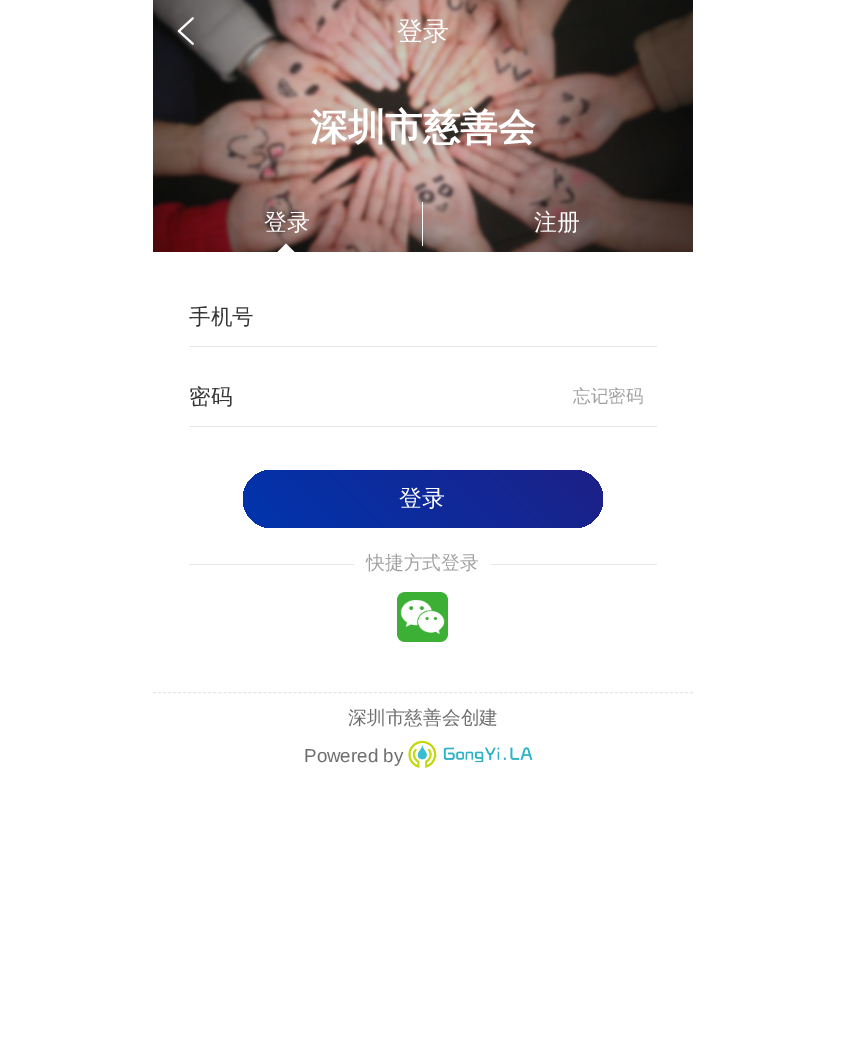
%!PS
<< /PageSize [845 1037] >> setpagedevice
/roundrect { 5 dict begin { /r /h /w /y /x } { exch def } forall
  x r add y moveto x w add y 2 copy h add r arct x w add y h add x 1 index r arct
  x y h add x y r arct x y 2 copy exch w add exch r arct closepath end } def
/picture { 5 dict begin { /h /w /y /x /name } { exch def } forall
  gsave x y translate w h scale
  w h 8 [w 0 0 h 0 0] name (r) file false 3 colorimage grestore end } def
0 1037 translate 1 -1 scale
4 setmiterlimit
1 setgray
0 0 845 1037 rectfill
(img1.rgb) 153 0 540 252 picture
(img2.rgb) 177 17 17 28 picture
/WenQuanYiZenHei-Medium [26 0 0 -26 0 0] selectfont
397 40 moveto (登录) show
/WenQuanYiZenHei-Bold [37.5 0 0 -37.5 0 0] selectfont
310 140 moveto (深圳市慈善会) show
/WenQuanYiZenHei-Medium [23 0 0 -23 0 0] selectfont
264 230 moveto (登录) show
422 202 1 44 rectfill
newpath 286 243.5 moveto 296 253.5 lineto 286 263.5 lineto 276 253.5 lineto closepath fill
534 230 moveto (注册) show
0.902 setgray
189 346 468 1 rectfill
/WenQuanYiZenHei-Medium [21.5 0 0 -21.5 0 0] selectfont
0.204 0.208 0.216 setrgbcolor
189 324 moveto (手机号) show
0.902 setgray
189 426 468 1 rectfill
0.204 0.208 0.216 setrgbcolor
189 404 moveto (密码) show
/WenQuanYiZenHei-Medium [17.5 0 0 -17.5 0 0] selectfont
0.627 setgray
573 402 moveto (忘记密码) show
gsave 243 470 360 58 29 roundrect clip newpath
<< /ShadingType 2 /ColorSpace /DeviceRGB /Coords [319 604 528 395] /Extend [true true] /Function << /FunctionType 2 /Domain [0 1] /C0 [0 0.208 0.682] /C1 [0.114 0.125 0.529] /N 1 >> >> shfill grestore
/WenQuanYiZenHei-Medium [23 0 0 -23 0 0] selectfont
1 setgray
399 506 moveto (登录) show
0.902 setgray
189 564 165 1 rectfill
/WenQuanYiZenHei-Medium [18.75 0 0 -18.75 0 0] selectfont
0.627 setgray
366 569 moveto (快捷方式登录) show
0.902 setgray
491 564 166 1 rectfill
(img3.rgb) 397 592 51 50 picture
[3 2.02] 0 setdash
newpath 153 692.5 moveto 693 692.5 lineto stroke
0.435 setgray
348 724 moveto (深圳市慈善会创建) show
/LiberationSans-Regular [18.75 0 0 -18.75 0 0] selectfont
304 762 moveto (Powered by) show
(img4.rgb) 408 740 125 28 picture
showpage
